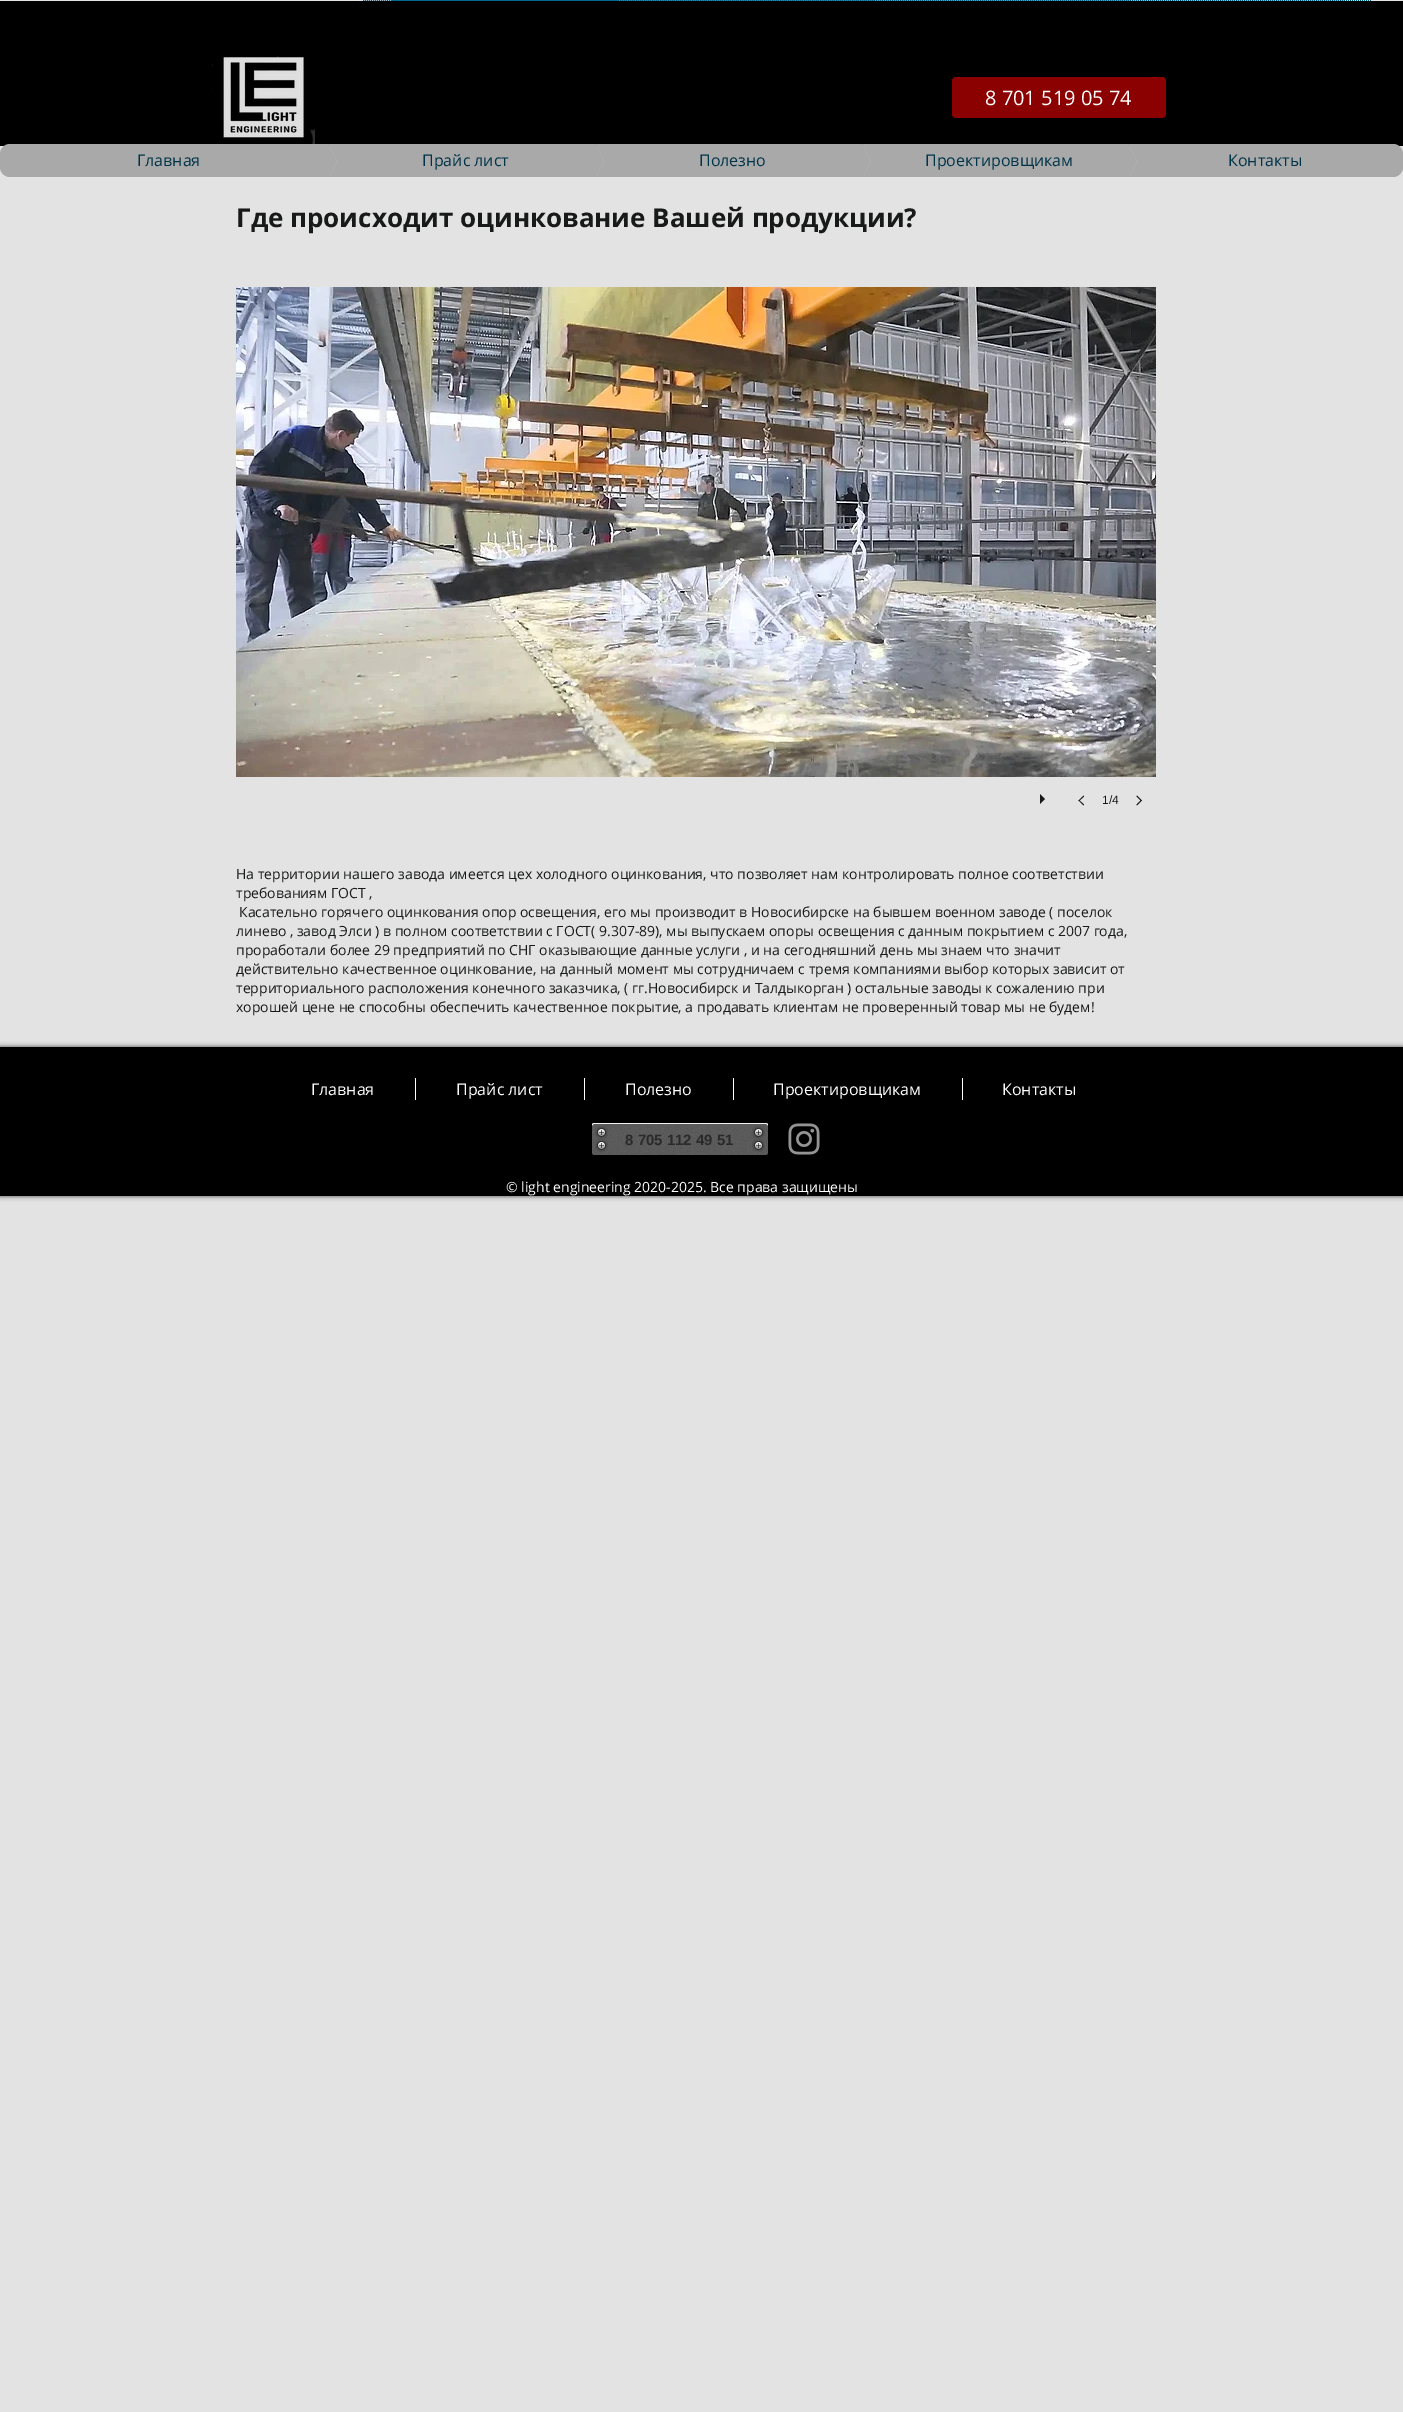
%!PS
<< /PageSize [1403 2412] /PageUsesTransparency true >> setpagedevice
/alpha { dup .setfillconstantalpha .setstrokeconstantalpha } def
/roundrect { 5 dict begin { /r /h /w /y /x } { exch def } forall
  x r add y moveto x w add y 2 copy h add r arct x w add y h add x 1 index r arct
  x y h add x y r arct x y 2 copy exch w add exch r arct closepath end } def
/shadow { 12 dict begin { /a /b /q /h /w /y /x } { exch def } forall gsave /was 0 def
  9 -2 -9 { dup b mul 4 div /e exch def 1 sub .425 mul 2.718 exch exp 1 add a .99 .min exch div /now exch def
    1 1 now sub 1 was sub div sub alpha /was now def
    w h .min e 2 mul add 0 gt { x e sub y e sub w e 2 mul add h e 2 mul add
      q e add b .6 mul add w h .min 2 div e add .min 0 .max roundrect fill } if } for grestore end } def
/picture { 5 dict begin { /h /w /y /x /name } { exch def } forall
  gsave x y translate w h scale
  w h 8 [w 0 0 h 0 0] name (r) file false 3 colorimage grestore end } def
0 .pushpdf14devicefilter
0 2412 translate 1 -1 scale
4 setmiterlimit
0.89 setgray
0 0 1403 2412 rectfill
0 0.412 0.565 setrgbcolor
[1 1] 0 setdash
newpath 392 0.5 moveto 1372 0.5 lineto stroke
newpath 363 0.5 moveto 1345 0.5 lineto stroke
0 setgray
0 1 1403 145 rectfill
(img1.rgb) 212 56 103 88 picture
0.545 0 0 setrgbcolor
952 77 214 41 4 roundrect fill
/OpenSans-Regular [20 0 0 -20 0 0] selectfont
1 setgray
985 105 moveto (8 701 519 05 74) show
0.663 setgray
newpath 10 144 moveto 267 144 lineto 267 177 lineto 10 177 lineto 4.5 177 0 172.5 0 167 curveto 0 154 lineto 0 148.5 4.5 144 10 144 curveto closepath fill
gsave
267 144 70 33 rectclip
newpath 337 161 moveto 267 161 lineto 267 21 lineto closepath fill
newpath 267 161 moveto 337 161 lineto 267 301 lineto closepath fill
grestore
/OpenSans-Regular [16 0 0 -16 0 0] selectfont
0 0.204 0.282 setrgbcolor
137 166 moveto (Главная) show
gsave
267 144 70 33 rectclip
0.663 setgray
newpath 267 21 moveto 337 21 lineto 337 161 lineto closepath 337 301 moveto 267 301 lineto 337 161 lineto closepath fill
grestore
0.663 setgray
337 144 197 33 rectfill
gsave
534 144 70 33 rectclip
newpath 604 161 moveto 534 161 lineto 534 21 lineto closepath fill
newpath 534 161 moveto 604 161 lineto 534 301 lineto closepath fill
grestore
0 0.204 0.282 setrgbcolor
422 166 moveto (Прайс лист) show
gsave
534 144 70 33 rectclip
0.663 setgray
newpath 534 21 moveto 604 21 lineto 604 161 lineto closepath 604 301 moveto 534 301 lineto 604 161 lineto closepath fill
grestore
0.663 setgray
604 144 197 33 rectfill
gsave
801 144 70 33 rectclip
newpath 871 161 moveto 801 161 lineto 801 21 lineto closepath fill
newpath 801 161 moveto 871 161 lineto 801 301 lineto closepath fill
grestore
0 0.204 0.282 setrgbcolor
699 166 moveto (Полезно) show
gsave
801 144 70 33 rectclip
0.663 setgray
newpath 801 21 moveto 871 21 lineto 871 161 lineto closepath 871 301 moveto 801 301 lineto 871 161 lineto closepath fill
grestore
0.663 setgray
871 144 196 33 rectfill
gsave
1067 144 70 33 rectclip
newpath 1137 161 moveto 1067 161 lineto 1067 21 lineto closepath fill
newpath 1067 161 moveto 1137 161 lineto 1067 301 lineto closepath fill
grestore
0 0.204 0.282 setrgbcolor
925 166 moveto (Проектировщикам) show
gsave
1067 144 70 33 rectclip
0.663 setgray
newpath 1067 21 moveto 1137 21 lineto 1137 161 lineto closepath 1137 301 moveto 1067 301 lineto 1137 161 lineto closepath fill
grestore
0.663 setgray
1137 144 196 33 rectfill
newpath 1333 144 moveto 1393 144 lineto 1398.5 144 1403 148.5 1403 154 curveto 1403 167 lineto 1403 172.5 1398.5 177 1393 177 curveto 1333 177 lineto closepath fill
0 0.204 0.282 setrgbcolor
1228 166 moveto (Контакты) show
/OpenSans-Bold [26 0 0 -26 0 0] selectfont
0.094 0.098 0.098 setrgbcolor
236 227 moveto (Где происходит оцинкование Вашей продукции?) show
(img2.rgb) 236 287 920 490 picture
newpath 1040 804 moveto 1040 794 lineto 1045 799 lineto closepath fill
newpath 1078.5 800.5 moveto 1083.5 795.5 lineto 1084 796.5 lineto 1079 801 lineto closepath fill
newpath 1078.5 800.5 moveto 1079 800 lineto 1084 804.5 lineto 1083.5 805.5 lineto closepath fill
/LiberationSans-Regular [12 0 0 -12 0 0] selectfont
1102 804 moveto (1/4) show
newpath 1136.5 796.5 moveto 1137 795.5 lineto 1142 800.5 lineto 1141 801 lineto closepath fill
newpath 1136.5 804.5 moveto 1141 800 lineto 1142 800.5 lineto 1137 805.5 lineto closepath fill
/OpenSans-Regular [14 0 0 -14 0 0] selectfont
236 879 moveto (На территории нашего завода имеется цех холодного оцинкования, что позволяет нам контролировать полное соответствии) show
236 898 moveto (требованиям ГОСТ ,) show
239 917 moveto (Касательно горячего оцинкования опор освещения, его мы производит в Новосибирске на бывшем военном заводе \( поселок) show
236 936 moveto (линево , завод Элси \) в полном соответствии с ГОСТ\( 9.307-89\), мы выпускаем опоры освещения с данным покрытием с 2007 года,) show
236 955 moveto (проработали более 29 предприятий по СНГ оказывающие данные услуги , и на сегодняшний день мы знаем что значит) show
236 974 moveto (действительно качественное оцинкование, на данный момент мы сотрудничаем с тремя компаниями выбор которых зависит от) show
236 993 moveto (территориального расположения конечного заказчика, \( гг.Новосибирск и Талдыкорган \) остальные заводы к сожалению при) show
236 1012 moveto (хорошей цене не способны обеспечить качественное покрытие, а продавать клиентам не проверенный товар мы не будем!) show
0 setgray
0 1047 1403 149 0 2.5 0.7 shadow
0 1047 1403 149 rectfill
/OpenSans-Regular [16 0 0 -16 0 0] selectfont
1 setgray
311 1095 moveto (Главная) show
415 1078 1 22 rectfill
456 1095 moveto (Прайс лист) show
584 1078 1 22 rectfill
625 1095 moveto (Полезно) show
733 1078 1 22 rectfill
773 1095 moveto (Проектировщикам) show
962 1078 1 22 rectfill
1002 1095 moveto (Контакты) show
0.357 setgray
592 1123 176 32 2 roundrect fill
(img3.rgb) 592 1123 176 32 picture
0.92 alpha
1 setgray
newpath 594 1124 moveto 766 1124 lineto 767 1124 768 1125 768 1126 curveto 768 1125 768 1123 766 1123 curveto 593 1123 lineto 592 1124 592 1125 592 1126 curveto 592 1125 593 1124 594 1124 curveto closepath fill
1 alpha
(img4.rgb) 595 1126 13 13 picture
/LiberationSans-Bold [15 0 0 -15 0 0] selectfont
0.165 setgray
625 1145 moveto (8 705 112 49 51) show
(img5.rgb) 752 1126 13 13 picture
(img6.rgb) 595 1139 13 13 picture
(img7.rgb) 752 1139 13 13 picture
(img8.rgb) 788 1123 32 32 picture
/OpenSans-Regular [14 0 0 -14 0 0] selectfont
1 setgray
506 1192 moveto (© light engineering 2020-2025. Все права защищены) show
.poppdf14devicefilter showpage
